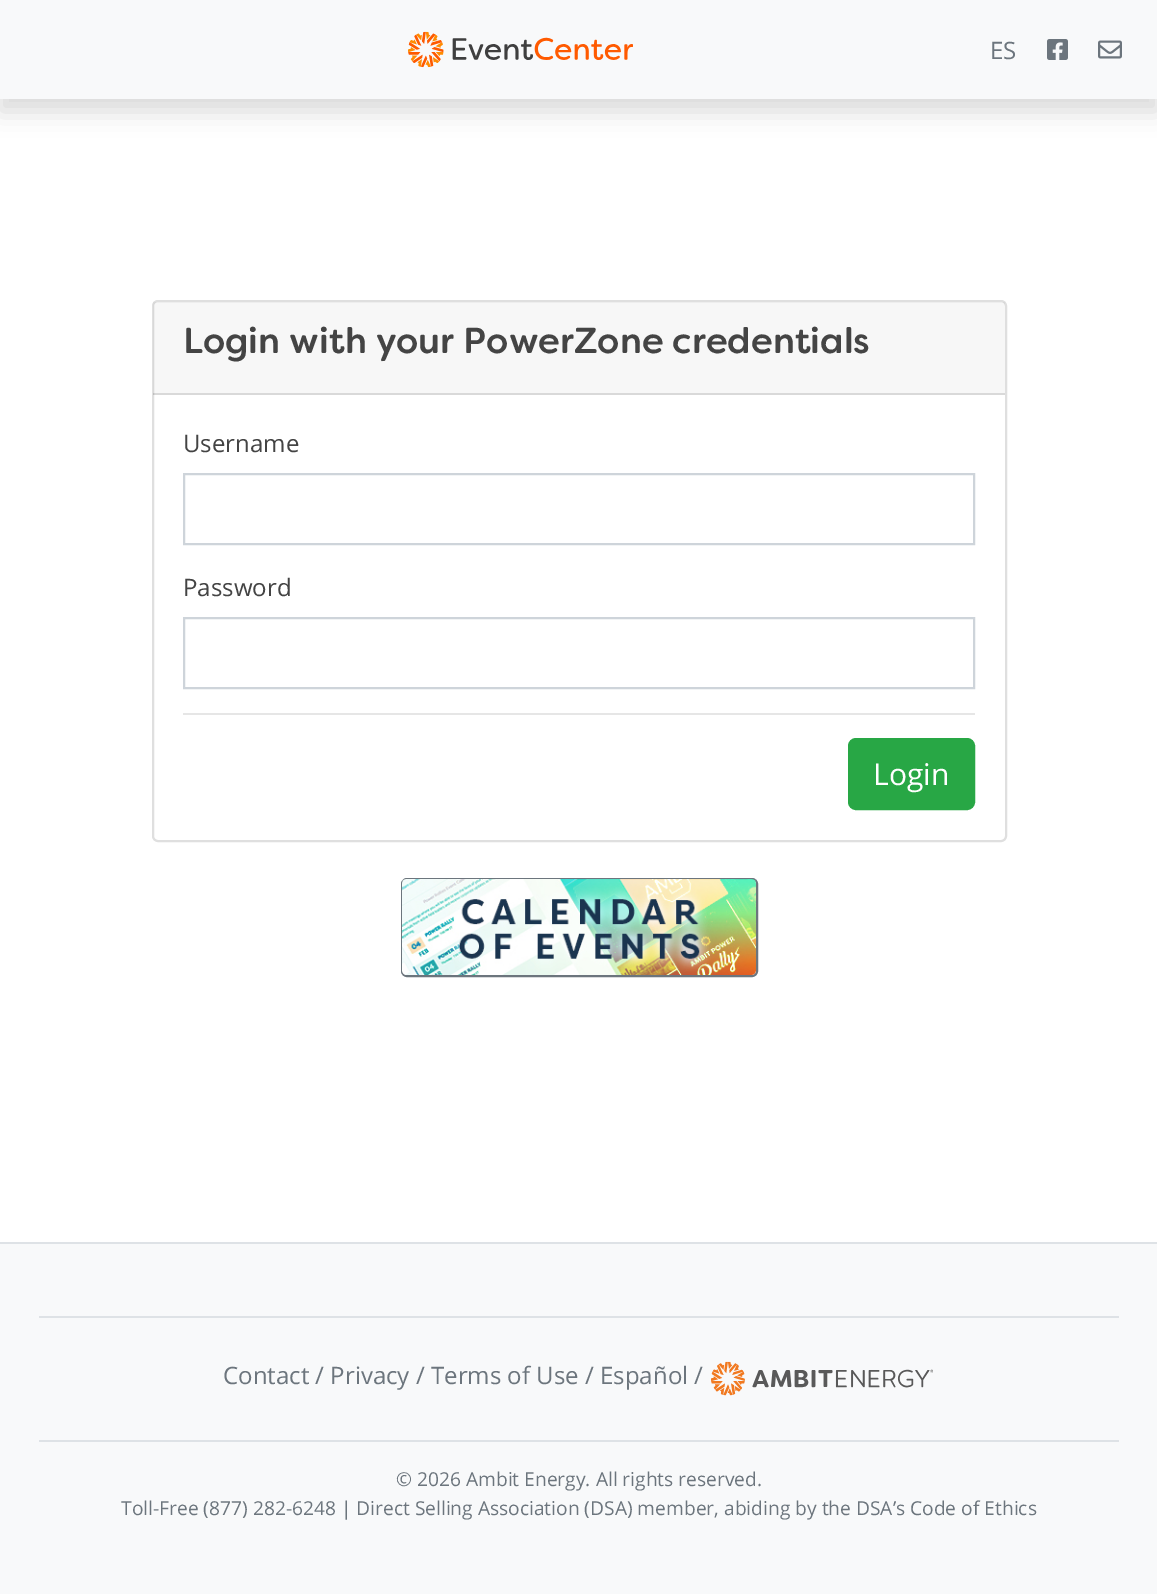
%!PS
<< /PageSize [1157 1594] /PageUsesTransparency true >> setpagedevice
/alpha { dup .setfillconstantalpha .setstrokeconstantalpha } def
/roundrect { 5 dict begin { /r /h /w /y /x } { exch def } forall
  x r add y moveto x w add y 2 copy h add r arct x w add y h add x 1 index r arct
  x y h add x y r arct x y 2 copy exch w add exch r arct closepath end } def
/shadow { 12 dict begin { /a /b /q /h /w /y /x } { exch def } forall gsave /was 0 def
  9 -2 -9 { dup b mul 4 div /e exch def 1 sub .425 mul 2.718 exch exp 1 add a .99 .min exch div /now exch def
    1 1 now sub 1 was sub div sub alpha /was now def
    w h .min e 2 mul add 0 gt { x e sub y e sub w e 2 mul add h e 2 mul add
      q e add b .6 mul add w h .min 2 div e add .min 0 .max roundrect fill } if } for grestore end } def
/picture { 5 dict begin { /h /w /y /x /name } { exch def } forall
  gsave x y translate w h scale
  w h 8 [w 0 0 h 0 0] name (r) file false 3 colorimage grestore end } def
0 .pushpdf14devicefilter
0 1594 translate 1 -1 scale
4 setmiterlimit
1 setgray
0 0 1157 1594 rectfill
0 setgray
0 12 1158 99 0 12 0.15 shadow
0.973 0.976 0.98 setrgbcolor
0 0 1157 99 rectfill
(img1.rgb) 408 31 225 37 picture
/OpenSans-Regular [24 0 0 -24 0 0] selectfont
0.424 0.459 0.49 setrgbcolor
990 59 moveto (ES) show
(img2.rgb) 1047 39 21 21 picture
(img3.rgb) 1098 40 24 19 picture
0.875 setgray
2 setlinewidth
153 301 853 540 5 roundrect stroke
0.03 alpha
0 setgray
153 302 852 93 rectfill
0.12 alpha
153 393 852 2 rectfill
/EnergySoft-Medium [36 0 0 -36 0 0] selectfont
1 alpha
0.267 setgray
183 353 moveto (Login with your PowerZone credentials) show
/OpenSans-Regular [24 0 0 -24 0 0] selectfont
183 452 moveto (Username) show
0.808 0.831 0.855 setrgbcolor
184 474 790 70 rectstroke
0.267 setgray
183 596 moveto (Password) show
0.808 0.831 0.855 setrgbcolor
184 618 790 70 rectstroke
0.902 setgray
183 713 792 2 rectfill
0.157 0.655 0.271 setrgbcolor
849 739 125 70 7 roundrect gsave fill grestore
stroke
/OpenSans-Regular [30 0 0 -30 0 0] selectfont
1 setgray
873 785 moveto (Login) show
0.424 0.459 0.49 setrgbcolor
402 879 355 97 5 roundrect stroke
(img4.rgb) 402 879 354 96 picture
0.973 0.976 0.98 setrgbcolor
0 1244 1157 350 rectfill
0.871 0.886 0.902 setrgbcolor
0 1242 1157 2 rectfill
39 1316 1080 2 rectfill
39 1440 1080 2 rectfill
/OpenSans-Regular [24 0 0 -24 0 0] selectfont
0.424 0.459 0.49 setrgbcolor
223 1384 moveto (Contact / Privacy / Terms of Use / Español /) show
(img5.rgb) 711 1361 222 35 picture
/OpenSans-Regular [19.2 0 0 -19.2 0 0] selectfont
396 1486 moveto (© 2026 Ambit Energy. All rights reserved.) show
121 1515 moveto (Toll-Free \(877\) 282-6248 | Direct Selling Association \(DSA\) member, abiding by the DSA’s Code of Ethics) show
.poppdf14devicefilter showpage
